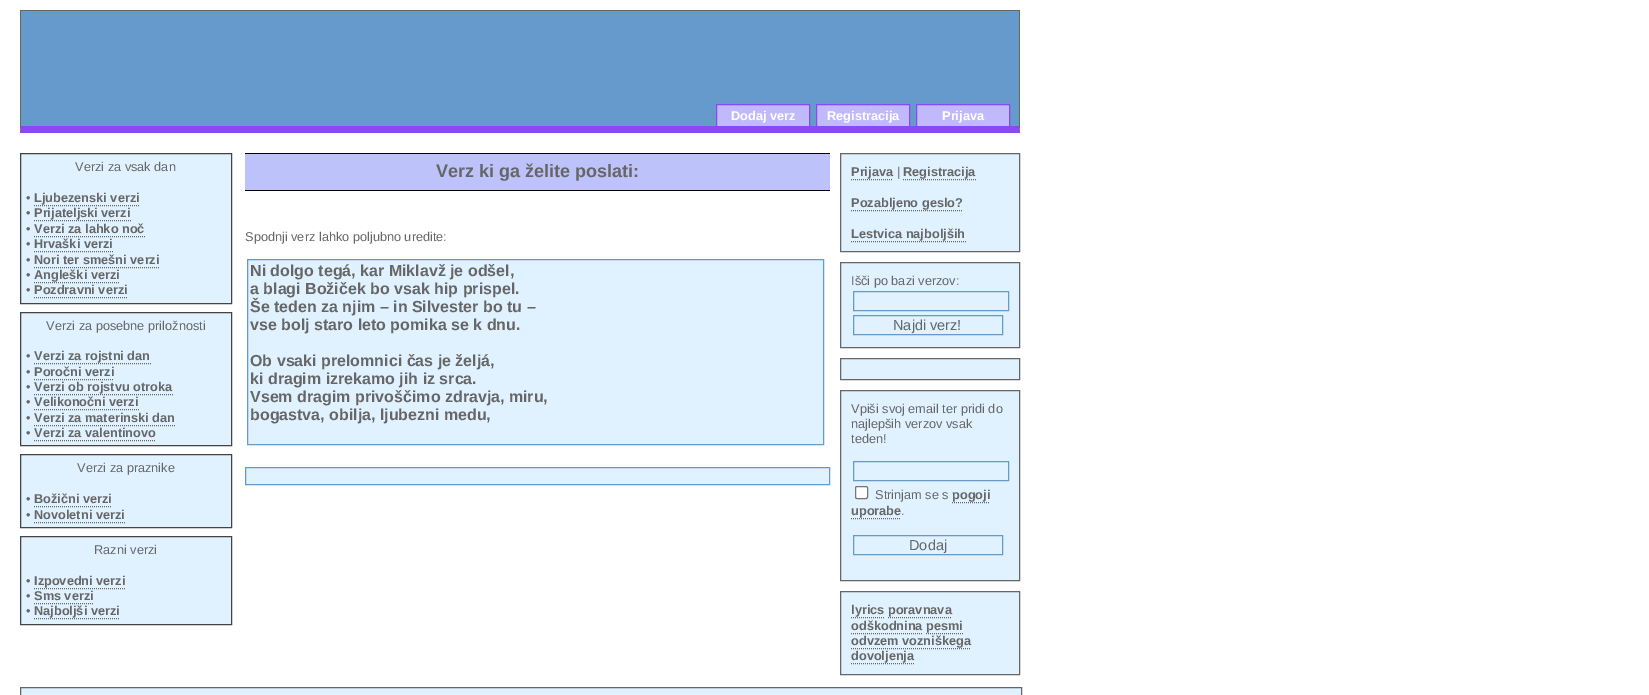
%!PS
<< /PageSize [1649 695] >> setpagedevice
/roundrect { 5 dict begin { /r /h /w /y /x } { exch def } forall
  x r add y moveto x w add y 2 copy h add r arct x w add y h add x 1 index r arct
  x y h add x y r arct x y 2 copy exch w add exch r arct closepath end } def
0 695 translate 1 -1 scale
4 setmiterlimit
1 setgray
0 0 1649 695 rectfill
0.4 0.6 0.8 setrgbcolor
21 11 998 115 rectfill
0.4 setgray
20 10 1000 1 rectfill
newpath 1020 10 moveto 1020 133 lineto 1019 126 lineto 1019 11 lineto closepath fill
0.541 0.282 0.969 setrgbcolor
newpath 1020 133 moveto 20 133 lineto 21 126 lineto 1019 126 lineto closepath fill
0.4 setgray
newpath 20 133 moveto 20 10 lineto 21 11 lineto 21 126 lineto closepath fill
0.753 0.729 0.988 setrgbcolor
newpath 716.5 104.5 moveto 809.5 104.5 lineto 809.5 126.5 lineto 716.5 126.5 lineto closepath gsave fill grestore
0.541 0.282 0.969 setrgbcolor
stroke
/LiberationSans-Bold [12.75 0 0 -12.75 0 0] selectfont
1 setgray
731 120 moveto (Dodaj verz) show
0.753 0.729 0.988 setrgbcolor
newpath 816.5 104.5 moveto 909.5 104.5 lineto 909.5 126.5 lineto 816.5 126.5 lineto closepath gsave fill grestore
0.541 0.282 0.969 setrgbcolor
stroke
1 setgray
827 120 moveto (Registracija) show
0.753 0.729 0.988 setrgbcolor
newpath 916.5 104.5 moveto 1009.5 104.5 lineto 1009.5 126.5 lineto 916.5 126.5 lineto closepath gsave fill grestore
0.541 0.282 0.969 setrgbcolor
stroke
1 setgray
942 120 moveto (Prijava) show
0.878 0.945 1 setrgbcolor
newpath 20.5 153.5 moveto 231.5 153.5 lineto 231.5 303.5 lineto 20.5 303.5 lineto closepath gsave fill grestore
0.267 setgray
stroke
/LiberationSans-Regular [12.75 0 0 -12.75 0 0] selectfont
0.4 setgray
75 171 moveto (Verzi za vsak dan) show
26 202 moveto (•) show
/LiberationSans-Bold [12.75 0 0 -12.75 0 0] selectfont
34 202 moveto (Ljubezenski verzi) show
[1 1] 0 setdash
newpath 34 205.5 moveto 140 205.5 lineto stroke
/LiberationSans-Regular [12.75 0 0 -12.75 0 0] selectfont
26 217 moveto (•) show
/LiberationSans-Bold [12.75 0 0 -12.75 0 0] selectfont
34 217 moveto (Prijateljski verzi) show
newpath 34 220.5 moveto 131 220.5 lineto stroke
/LiberationSans-Regular [12.75 0 0 -12.75 0 0] selectfont
26 233 moveto (•) show
/LiberationSans-Bold [12.75 0 0 -12.75 0 0] selectfont
34 233 moveto (Verzi za lahko noč) show
newpath 34 236.5 moveto 145 236.5 lineto stroke
/LiberationSans-Regular [12.75 0 0 -12.75 0 0] selectfont
26 248 moveto (•) show
/LiberationSans-Bold [12.75 0 0 -12.75 0 0] selectfont
34 248 moveto (Hrvaški verzi) show
newpath 34 251.5 moveto 113 251.5 lineto stroke
/LiberationSans-Regular [12.75 0 0 -12.75 0 0] selectfont
26 264 moveto (•) show
/LiberationSans-Bold [12.75 0 0 -12.75 0 0] selectfont
34 264 moveto (Nori ter smešni verzi) show
newpath 34 267.5 moveto 160 267.5 lineto stroke
/LiberationSans-Regular [12.75 0 0 -12.75 0 0] selectfont
26 279 moveto (•) show
/LiberationSans-Bold [12.75 0 0 -12.75 0 0] selectfont
34 279 moveto (Angleški verzi) show
newpath 34 282.5 moveto 120 282.5 lineto stroke
/LiberationSans-Regular [12.75 0 0 -12.75 0 0] selectfont
26 294 moveto (•) show
/LiberationSans-Bold [12.75 0 0 -12.75 0 0] selectfont
34 294 moveto (Pozdravni verzi) show
newpath 34 297.5 moveto 128 297.5 lineto stroke
0.878 0.945 1 setrgbcolor
newpath 20.5 312.5 moveto 231.5 312.5 lineto 231.5 445.5 lineto 20.5 445.5 lineto closepath gsave fill grestore
0.267 setgray
[] 0 setdash
stroke
/LiberationSans-Regular [12.75 0 0 -12.75 0 0] selectfont
0.4 setgray
46 330 moveto (Verzi za posebne priložnosti) show
26 360 moveto (•) show
/LiberationSans-Bold [12.75 0 0 -12.75 0 0] selectfont
34 360 moveto (Verzi za rojstni dan) show
[1 1] 0 setdash
newpath 34 363.5 moveto 151 363.5 lineto stroke
/LiberationSans-Regular [12.75 0 0 -12.75 0 0] selectfont
26 376 moveto (•) show
/LiberationSans-Bold [12.75 0 0 -12.75 0 0] selectfont
34 376 moveto (Poročni verzi) show
newpath 34 379.5 moveto 114 379.5 lineto stroke
/LiberationSans-Regular [12.75 0 0 -12.75 0 0] selectfont
26 391 moveto (•) show
/LiberationSans-Bold [12.75 0 0 -12.75 0 0] selectfont
34 391 moveto (Verzi ob rojstvu otroka) show
newpath 34 394.5 moveto 173 394.5 lineto stroke
/LiberationSans-Regular [12.75 0 0 -12.75 0 0] selectfont
26 406 moveto (•) show
/LiberationSans-Bold [12.75 0 0 -12.75 0 0] selectfont
34 406 moveto (Velikonočni verzi) show
newpath 34 409.5 moveto 139 409.5 lineto stroke
/LiberationSans-Regular [12.75 0 0 -12.75 0 0] selectfont
26 422 moveto (•) show
/LiberationSans-Bold [12.75 0 0 -12.75 0 0] selectfont
34 422 moveto (Verzi za materinski dan) show
newpath 34 425.5 moveto 176 425.5 lineto stroke
/LiberationSans-Regular [12.75 0 0 -12.75 0 0] selectfont
26 437 moveto (•) show
/LiberationSans-Bold [12.75 0 0 -12.75 0 0] selectfont
34 437 moveto (Verzi za valentinovo) show
newpath 34 440.5 moveto 156 440.5 lineto stroke
0.878 0.945 1 setrgbcolor
newpath 20.5 454.5 moveto 231.5 454.5 lineto 231.5 527.5 lineto 20.5 527.5 lineto closepath gsave fill grestore
0.267 setgray
[] 0 setdash
stroke
/LiberationSans-Regular [12.75 0 0 -12.75 0 0] selectfont
0.4 setgray
77 472 moveto (Verzi za praznike) show
26 503 moveto (•) show
/LiberationSans-Bold [12.75 0 0 -12.75 0 0] selectfont
34 503 moveto (Božični verzi) show
[1 1] 0 setdash
newpath 34 506.5 moveto 112 506.5 lineto stroke
/LiberationSans-Regular [12.75 0 0 -12.75 0 0] selectfont
26 519 moveto (•) show
/LiberationSans-Bold [12.75 0 0 -12.75 0 0] selectfont
34 519 moveto (Novoletni verzi) show
newpath 34 522.5 moveto 125 522.5 lineto stroke
0.878 0.945 1 setrgbcolor
newpath 20.5 536.5 moveto 231.5 536.5 lineto 231.5 624.5 lineto 20.5 624.5 lineto closepath gsave fill grestore
0.267 setgray
[] 0 setdash
stroke
/LiberationSans-Regular [12.75 0 0 -12.75 0 0] selectfont
0.4 setgray
94 554 moveto (Razni verzi) show
26 585 moveto (•) show
/LiberationSans-Bold [12.75 0 0 -12.75 0 0] selectfont
34 585 moveto (Izpovedni verzi) show
[1 1] 0 setdash
newpath 34 588.5 moveto 126 588.5 lineto stroke
/LiberationSans-Regular [12.75 0 0 -12.75 0 0] selectfont
26 600 moveto (•) show
/LiberationSans-Bold [12.75 0 0 -12.75 0 0] selectfont
34 600 moveto (Sms verzi) show
newpath 34 603.5 moveto 94 603.5 lineto stroke
/LiberationSans-Regular [12.75 0 0 -12.75 0 0] selectfont
26 615 moveto (•) show
/LiberationSans-Bold [12.75 0 0 -12.75 0 0] selectfont
34 615 moveto (Najboljši verzi) show
newpath 34 618.5 moveto 120 618.5 lineto stroke
0.745 0.761 0.98 setrgbcolor
245 154 585 36 rectfill
0 setgray
245 153 585 1 rectfill
245 190 585 1 rectfill
/LiberationSans-Bold [18 0 0 -18 0 0] selectfont
0.4 setgray
436 177 moveto (Verz ki ga želite poslati:) show
/LiberationSans-Regular [12.75 0 0 -12.75 0 0] selectfont
245 241 moveto (Spodnji verz lahko poljubno uredite:) show
0.878 0.945 1 setrgbcolor
newpath 247.5 259.5 moveto 823.5 259.5 lineto 823.5 444.5 lineto 247.5 444.5 lineto closepath gsave fill grestore
0.4 0.6 0.8 setrgbcolor
[] 0 setdash
stroke
/LiberationSans-Bold [16 0 0 -16 0 0] selectfont
0.4 setgray
250 276 moveto (Ni dolgo tegá, kar Miklavž je odšel,) show
250 294 moveto (a blagi Božiček bo vsak hip prispel.) show
250 312 moveto (Še teden za njim – in Silvester bo tu –) show
250 330 moveto (vse bolj staro leto pomika se k dnu.) show
250 366 moveto (Ob vsaki prelomnici čas je željá,) show
250 384 moveto (ki dragim izrekamo jih iz srca.) show
250 402 moveto (Vsem dragim privoščimo zdravja, miru,) show
250 420 moveto (bogastva, obilja, ljubezni medu,) show
0.878 0.945 1 setrgbcolor
newpath 245.5 467.5 moveto 829.5 467.5 lineto 829.5 484.5 lineto 245.5 484.5 lineto closepath gsave fill grestore
0.4 0.6 0.8 setrgbcolor
stroke
0.878 0.945 1 setrgbcolor
newpath 840.5 153.5 moveto 1019.5 153.5 lineto 1019.5 251.5 lineto 840.5 251.5 lineto closepath gsave fill grestore
0.4 setgray
stroke
/LiberationSans-Bold [12.75 0 0 -12.75 0 0] selectfont
851 176 moveto (Prijava) show
[1 1] 0 setdash
newpath 851 179.5 moveto 893 179.5 lineto stroke
/LiberationSans-Regular [12.75 0 0 -12.75 0 0] selectfont
897 176 moveto (|) show
/LiberationSans-Bold [12.75 0 0 -12.75 0 0] selectfont
903 176 moveto (Registracija) show
newpath 903 179.5 moveto 976 179.5 lineto stroke
851 207 moveto (Pozabljeno geslo?) show
newpath 851 210.5 moveto 963 210.5 lineto stroke
851 238 moveto (Lestvica najboljših) show
newpath 851 241.5 moveto 966 241.5 lineto stroke
0.878 0.945 1 setrgbcolor
newpath 840.5 262.5 moveto 1019.5 262.5 lineto 1019.5 347.5 lineto 840.5 347.5 lineto closepath gsave fill grestore
0.4 setgray
[] 0 setdash
stroke
/LiberationSans-Regular [12.75 0 0 -12.75 0 0] selectfont
851 285 moveto (Išči po bazi verzov:) show
0.4 0.6 0.8 setrgbcolor
853.5 291.5 155 19 rectstroke
853.5 315.5 149 19 rectstroke
/LiberationSans-Regular [14.5 0 0 -14.5 0 0] selectfont
0.4 setgray
893 330 moveto (Najdi verz!) show
0.878 0.945 1 setrgbcolor
newpath 840.5 358.5 moveto 1019.5 358.5 lineto 1019.5 379.5 lineto 840.5 379.5 lineto closepath gsave fill grestore
0.4 setgray
stroke
0.878 0.945 1 setrgbcolor
newpath 840.5 390.5 moveto 1019.5 390.5 lineto 1019.5 580.5 lineto 840.5 580.5 lineto closepath gsave fill grestore
0.4 setgray
stroke
/LiberationSans-Regular [12.75 0 0 -12.75 0 0] selectfont
851 413 moveto (Vpiši svoj email ter pridi do) show
851 428 moveto (najlepših verzov vsak) show
851 443 moveto (teden!) show
0.4 0.6 0.8 setrgbcolor
853.5 461.5 155 19 rectstroke
1 setgray
855.5 486.5 12 12 1.5 roundrect gsave fill grestore
0.463 setgray
stroke
0.4 setgray
875 499 moveto (Strinjam se s) show
/LiberationSans-Bold [12.75 0 0 -12.75 0 0] selectfont
952 499 moveto (pogoji) show
[1 1] 0 setdash
newpath 952 502.5 moveto 990 502.5 lineto stroke
851 515 moveto (uporabe) show
newpath 851 518.5 moveto 901 518.5 lineto stroke
/LiberationSans-Regular [12.75 0 0 -12.75 0 0] selectfont
901 515 moveto (.) show
0.4 0.6 0.8 setrgbcolor
[] 0 setdash
853.5 535.5 149 19 rectstroke
/LiberationSans-Regular [14.5 0 0 -14.5 0 0] selectfont
0.4 setgray
909 550 moveto (Dodaj) show
0.878 0.945 1 setrgbcolor
newpath 840.5 591.5 moveto 1019.5 591.5 lineto 1019.5 674.5 lineto 840.5 674.5 lineto closepath gsave fill grestore
0.4 setgray
stroke
/LiberationSans-Bold [12.75 0 0 -12.75 0 0] selectfont
851 614 moveto (lyrics poravnava) show
[1 1] 0 setdash
newpath 851 617.5 moveto 884 617.5 lineto stroke
851 630 moveto (odškodnina pesmi) show
newpath 888 617.5 moveto 952 617.5 lineto stroke
newpath 851 633.5 moveto 923 633.5 lineto stroke
newpath 926 633.5 moveto 963 633.5 lineto stroke
851 645 moveto (odvzem vozniškega) show
newpath 851 648.5 moveto 971 648.5 lineto stroke
851 660 moveto (dovoljenja) show
newpath 851 663.5 moveto 914 663.5 lineto stroke
0.878 0.945 1 setrgbcolor
newpath 20.5 687.5 moveto 1021.5 687.5 lineto 1021.5 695.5 lineto 20.5 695.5 lineto closepath gsave fill grestore
0.4 setgray
[] 0 setdash
stroke
showpage
